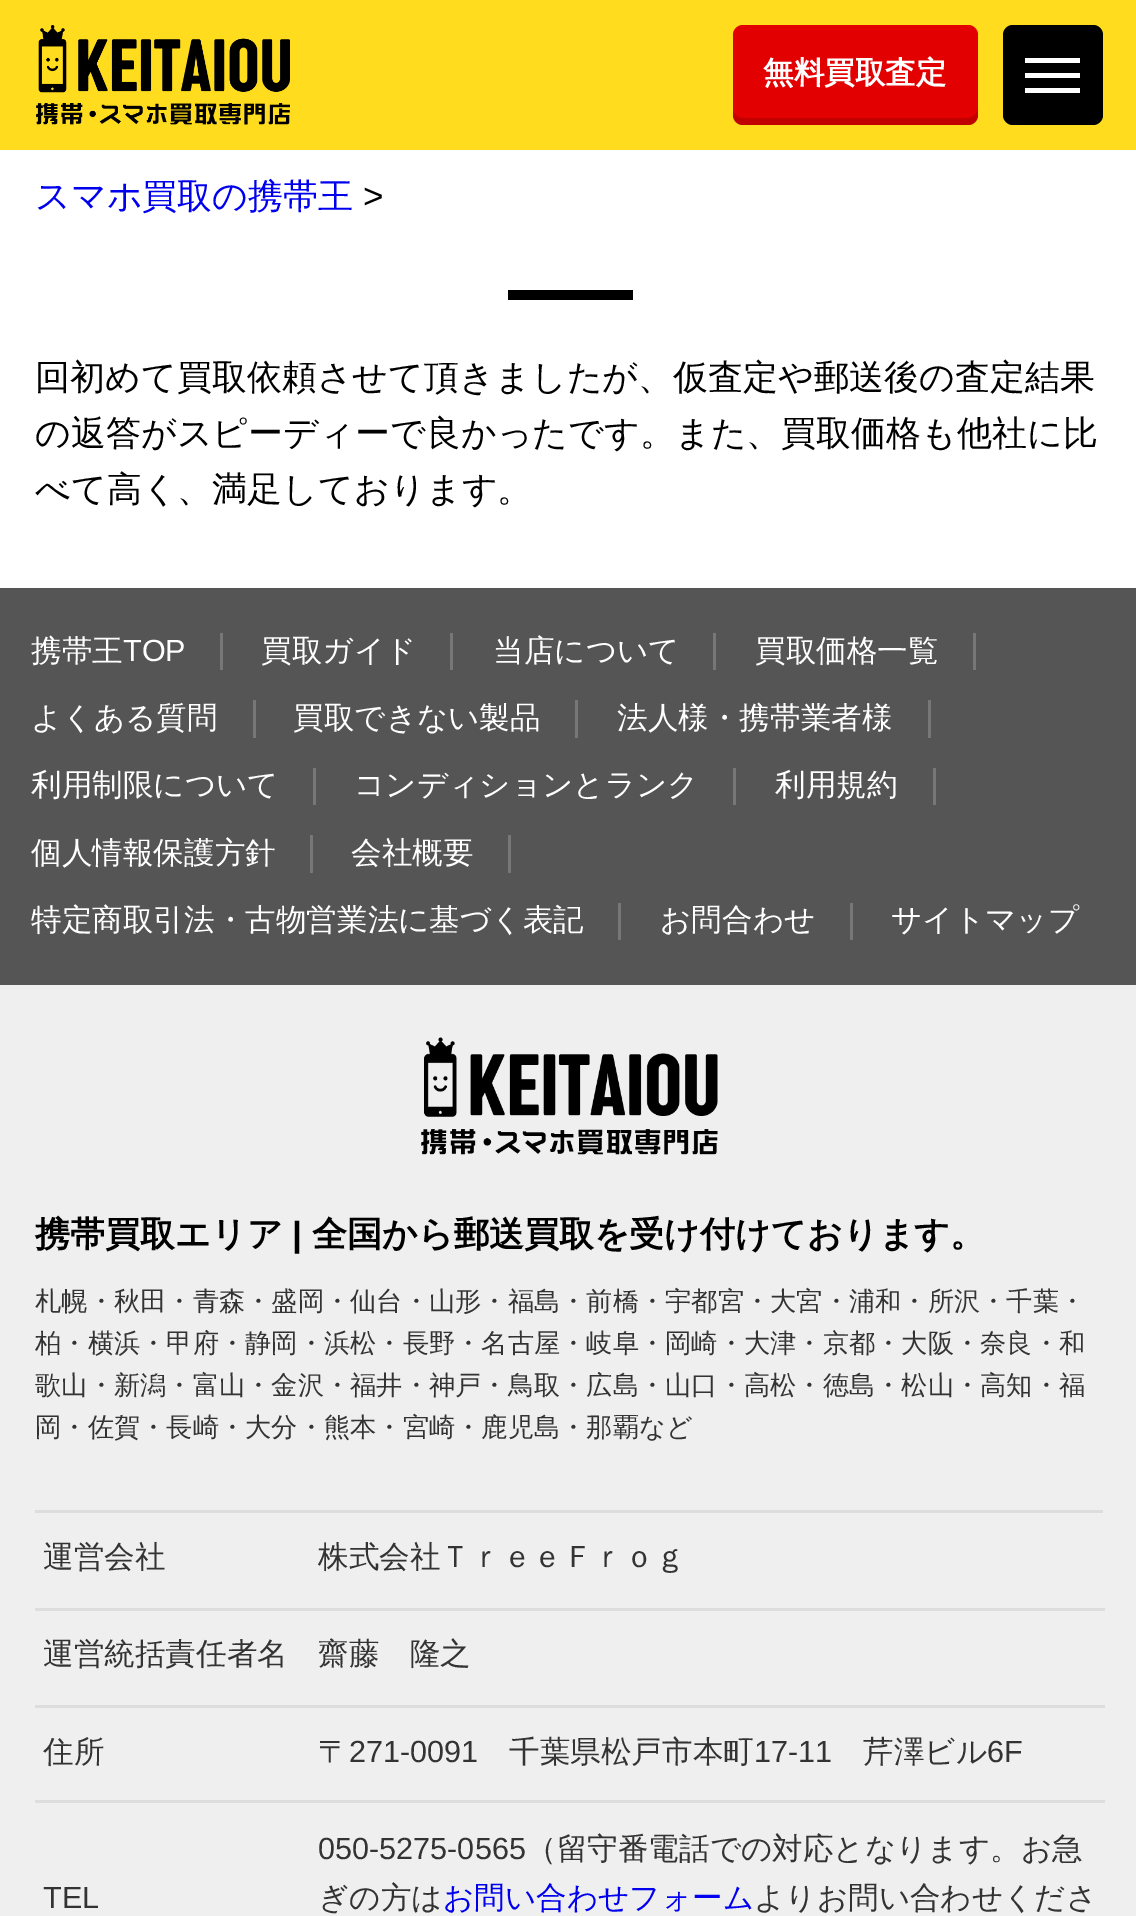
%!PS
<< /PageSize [1136 1916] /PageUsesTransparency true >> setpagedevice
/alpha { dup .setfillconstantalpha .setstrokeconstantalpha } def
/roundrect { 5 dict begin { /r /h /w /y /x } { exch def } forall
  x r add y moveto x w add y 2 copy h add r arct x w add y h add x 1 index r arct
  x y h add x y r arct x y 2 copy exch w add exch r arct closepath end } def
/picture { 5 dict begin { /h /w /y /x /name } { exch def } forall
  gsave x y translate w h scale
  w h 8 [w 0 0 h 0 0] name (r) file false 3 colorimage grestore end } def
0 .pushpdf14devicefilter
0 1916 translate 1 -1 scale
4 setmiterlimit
1 setgray
0 0 1136 1916 rectfill
1 0.863 0.114 setrgbcolor
0 0 1136 150 rectfill
(img1.rgb) 36 25 254 100 picture
0.89 0 0 setrgbcolor
733 25 245 100 10 roundrect fill
0.15 alpha
0 setgray
newpath 733 112 moveto 733 115 lineto 733 121 737 125 743 125 curveto 968 125 lineto 974 125 978 121 978 115 curveto 978 108 lineto 978 113 973 118 968 118 curveto 742 118 lineto 738 118 735 115 733 112 curveto closepath fill
/WenQuanYiZenHei-Bold [30.6 0 0 -30.6 0 0] selectfont
1 alpha
1 setgray
763 83 moveto (無料買取査定) show
0 setgray
1003 25 100 100 10 roundrect fill
1 setgray
1025 58 55 5 rectfill
1025 73 55 5 rectfill
1025 88 55 5 rectfill
/WenQuanYiZenHei-Medium [35 0 0 -35 0 0] selectfont
0 0 0.933 setrgbcolor
35 208 moveto (スマホ買取の携帯王) show
/LiberationSans-Regular [35 0 0 -35 0 0] selectfont
0 setgray
363 208 moveto (>) show
508 290 125 10 rectfill
/WenQuanYiZenHei-Medium [35 0 0 -35 0 0] selectfont
35 389 moveto (回初めて買取依頼させて頂きましたが、仮査定や郵送後の査定結果) show
35 445 moveto (の返答がスピーディーで良かったです。また、買取価格も他社に比) show
35 501 moveto (べて高く、満足しております。) show
0.333 setgray
0 588 1136 397 rectfill
/WenQuanYiZenHei-Medium [30.6 0 0 -30.6 0 0] selectfont
1 setgray
31 661 moveto (携帯王) show
/LiberationSans-Regular [30.6 0 0 -30.6 0 0] selectfont
123 661 moveto (TOP) show
0.467 setgray
220 633 3 37 rectfill
/WenQuanYiZenHei-Medium [30.6 0 0 -30.6 0 0] selectfont
1 setgray
261 661 moveto (買取ガイド) show
0.467 setgray
450 633 3 37 rectfill
1 setgray
493 661 moveto (当店について) show
0.467 setgray
713 633 3 37 rectfill
1 setgray
755 661 moveto (買取価格一覧) show
0.467 setgray
973 633 3 37 rectfill
1 setgray
31 728 moveto (よくある質問) show
0.467 setgray
253 700 3 38 rectfill
1 setgray
293 728 moveto (買取できない製品) show
0.467 setgray
575 700 3 38 rectfill
1 setgray
617 728 moveto (法人様・携帯業者様) show
0.467 setgray
928 700 3 38 rectfill
1 setgray
31 795 moveto (利用制限について) show
0.467 setgray
313 768 3 37 rectfill
1 setgray
354 795 moveto (コンディションとランク) show
0.467 setgray
733 768 3 37 rectfill
1 setgray
775 795 moveto (利用規約) show
0.467 setgray
933 768 3 37 rectfill
1 setgray
31 863 moveto (個人情報保護方針) show
0.467 setgray
310 835 3 38 rectfill
1 setgray
351 863 moveto (会社概要) show
0.467 setgray
508 835 3 38 rectfill
1 setgray
31 930 moveto (特定商取引法・古物営業法に基づく表記) show
0.467 setgray
618 903 3 37 rectfill
1 setgray
660 930 moveto (お問合わせ) show
0.467 setgray
850 903 3 37 rectfill
1 setgray
891 930 moveto (サイトマップ) show
0.937 setgray
0 985 1136 931 rectfill
(img2.rgb) 421 1037 297 118 picture
/WenQuanYiZenHei-Bold [35 0 0 -35 0 0] selectfont
0 setgray
35 1246 moveto (携帯買取エリア) show
/LiberationSans-Bold [35 0 0 -35 0 0] selectfont
292 1246 moveto (|) show
/WenQuanYiZenHei-Bold [35 0 0 -35 0 0] selectfont
312 1246 moveto (全国から郵送買取を受け付けております。) show
/WenQuanYiZenHei-Medium [26.25 0 0 -26.25 0 0] selectfont
0.2 setgray
35 1310 moveto (札幌・秋田・青森・盛岡・仙台・山形・福島・前橋・宇都宮・大宮・浦和・所沢・千葉・) show
35 1352 moveto (柏・横浜・甲府・静岡・浜松・長野・名古屋・岐阜・岡崎・大津・京都・大阪・奈良・和) show
35 1394 moveto (歌山・新潟・富山・金沢・福井・神戸・鳥取・広島・山口・高松・徳島・松山・高知・福) show
35 1436 moveto (岡・佐賀・長崎・大分・熊本・宮崎・鹿児島・那覇など) show
0.867 setgray
35 1510 1068 3 rectfill
/WenQuanYiZenHei-Medium [30.6 0 0 -30.6 0 0] selectfont
0.2 setgray
43 1567 moveto (運営会社) show
0.867 setgray
35 1608 1070 3 rectfill
0.2 setgray
318 1567 moveto (株式会社ＴｒｅｅＦｒｏｇ) show
43 1664 moveto (運営統括責任者名) show
0.867 setgray
35 1705 1070 3 rectfill
0.2 setgray
318 1664 moveto (齋藤　隆之) show
43 1762 moveto (住所) show
0.867 setgray
35 1800 1070 3 rectfill
0.2 setgray
318 1762 moveto (〒) show
/LiberationSans-Regular [30.6 0 0 -30.6 0 0] selectfont
349 1762 moveto (271-0091) show
/WenQuanYiZenHei-Medium [30.6 0 0 -30.6 0 0] selectfont
509 1762 moveto (千葉県松戸市本町) show
/LiberationSans-Regular [30.6 0 0 -30.6 0 0] selectfont
754 1762 moveto (17-11) show
/WenQuanYiZenHei-Medium [30.6 0 0 -30.6 0 0] selectfont
863 1762 moveto (芹澤ビル) show
/LiberationSans-Regular [30.6 0 0 -30.6 0 0] selectfont
987 1762 moveto (6F) show
43 1908 moveto (TEL) show
318 1859 moveto (050-5275-0565) show
/WenQuanYiZenHei-Medium [30.6 0 0 -30.6 0 0] selectfont
526 1859 moveto (（留守番電話での対応となります。お急) show
318 1908 moveto (ぎの方は) show
0 0 0.933 setrgbcolor
443 1908 moveto (お問い合わせフォーム) show
0.2 setgray
754 1908 moveto (よりお問い合わせくださ) show
.poppdf14devicefilter showpage
